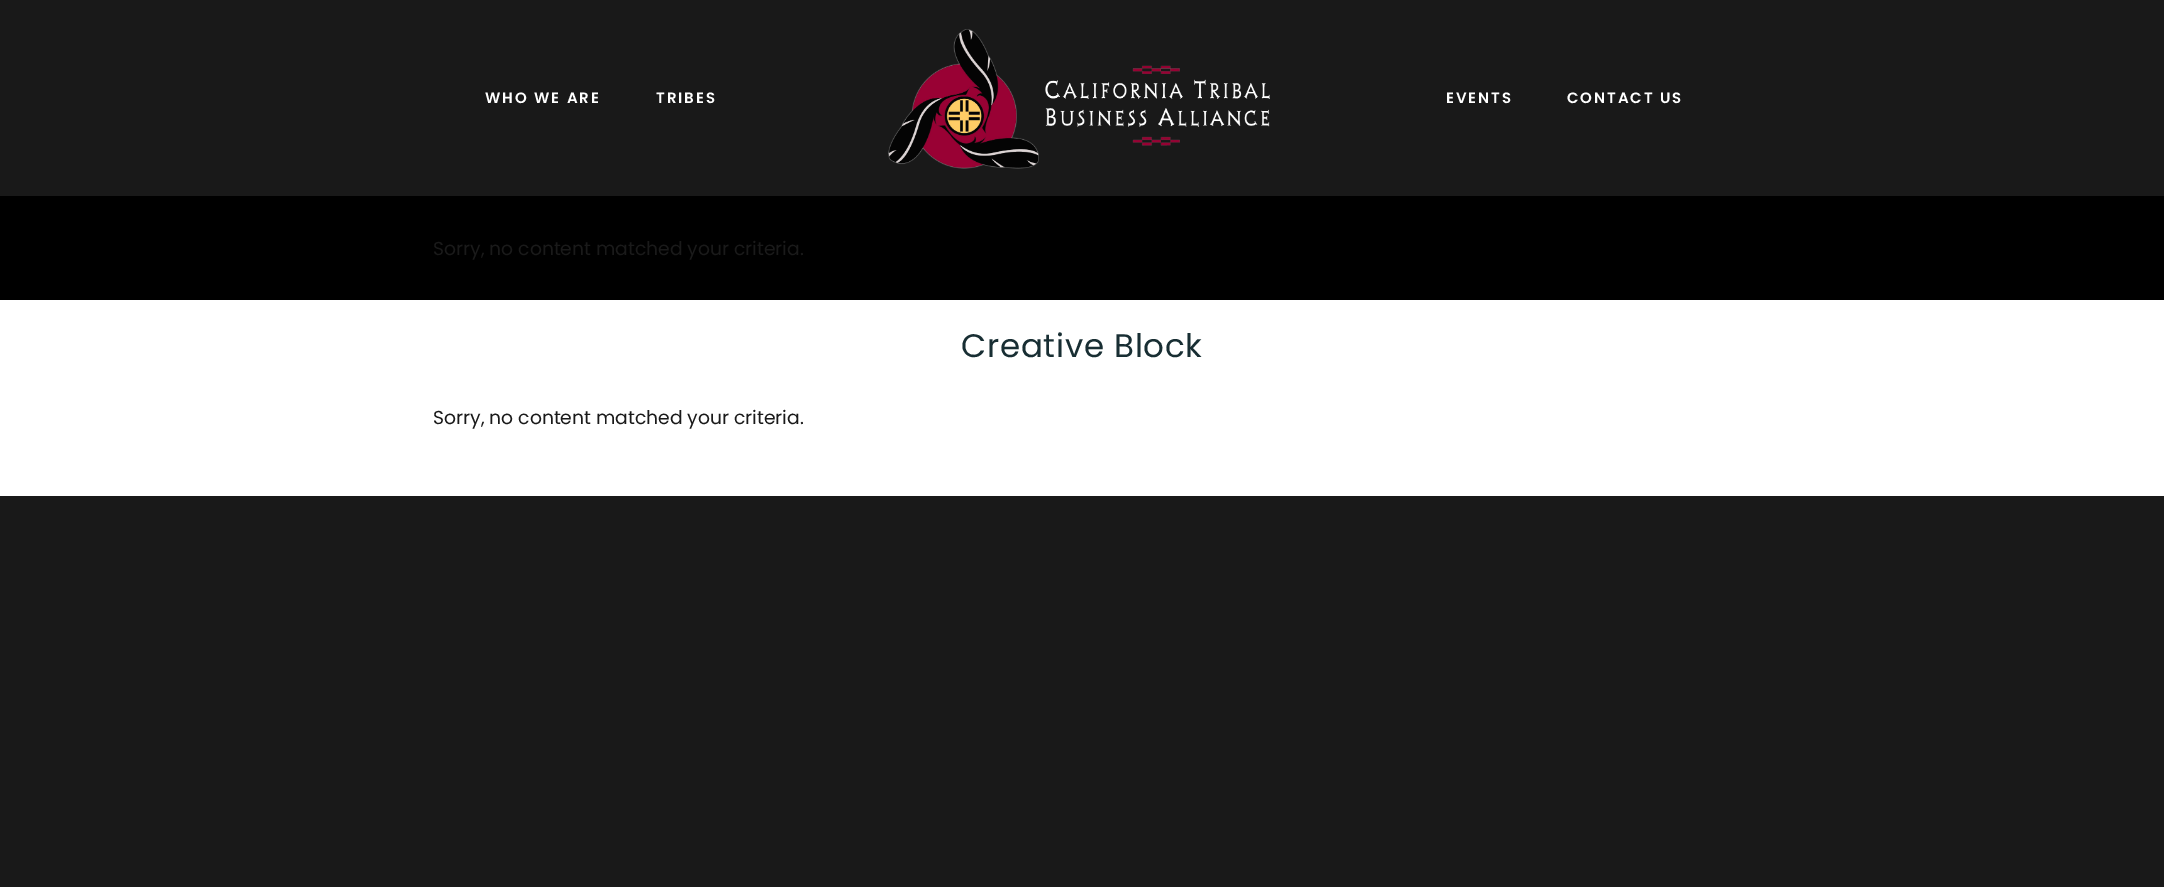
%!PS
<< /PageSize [2164 887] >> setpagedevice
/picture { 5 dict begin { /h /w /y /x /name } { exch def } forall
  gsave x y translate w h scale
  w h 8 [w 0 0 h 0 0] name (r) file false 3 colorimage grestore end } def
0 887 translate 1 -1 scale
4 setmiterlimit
1 setgray
0 0 2164 887 rectfill
0.098 setgray
0 0 2164 196 rectfill
/Poppins-SemiBold [15 0 0 -15 0 0] selectfont
1 setgray
485 103 moveto 1.9 0 (WHO WE ARE) ashow
656 103 moveto 1.9 0 (TRIBES) ashow
(img1.rgb) 888 29 382 140 picture
1446 103 moveto 1.9 0 (EVENTS) ashow
1567 103 moveto 1.9 0 (CONTACT US) ashow
0 setgray
0 196 2164 104 rectfill
/Poppins-Regular [18.75 0 0 -18.75 0 0] selectfont
0.102 setgray
433 255 moveto (Sorry, no content matched your criteria.) show
/Poppins-Regular [32.5 0 0 -32.5 0 0] selectfont
0.094 0.18 0.2 setrgbcolor
961 357 moveto 0.75 0 (Creative Block) ashow
/Poppins-Regular [18.75 0 0 -18.75 0 0] selectfont
0.102 setgray
433 424 moveto (Sorry, no content matched your criteria.) show
0.098 setgray
0 496 2164 391 rectfill
showpage
